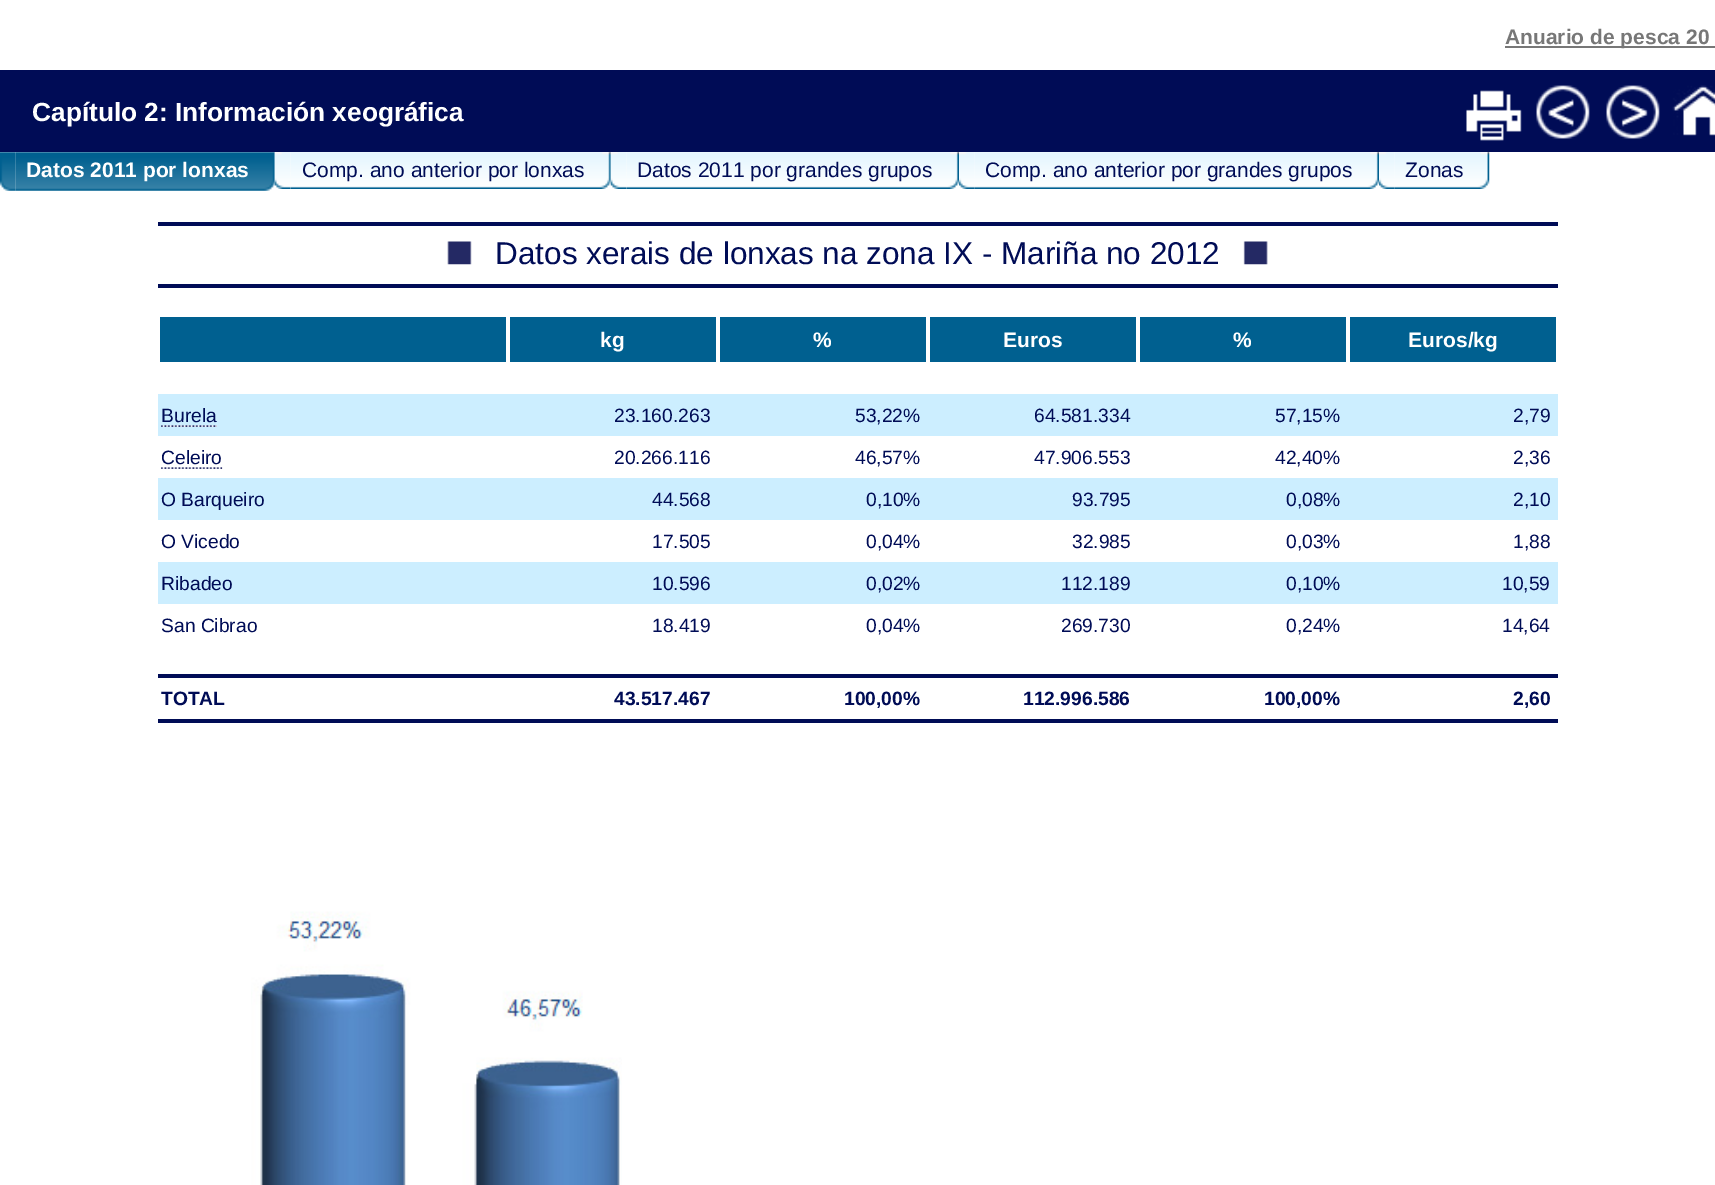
%!PS
<< /PageSize [1715 1185] >> setpagedevice
/picture { 5 dict begin { /h /w /y /x /name } { exch def } forall
  gsave x y translate w h scale
  w h 8 [w 0 0 h 0 0] name (r) file false 3 colorimage grestore end } def
0 1185 translate 1 -1 scale
4 setmiterlimit
1 setgray
0 0 1715 1185 rectfill
0.467 setgray
1505 46 210 2 rectfill
/LiberationSans-Bold [21 0 0 -21 0 0] selectfont
1505 44 moveto (Anuario de pesca 20) show
0 0.047 0.337 setrgbcolor
0 70 1715 82 rectfill
/LiberationSans-Bold [26.25 0 0 -26.25 0 0] selectfont
1 setgray
32 121 moveto (Capítulo 2: Información xeográfica) show
(img1.rgb) 1466 90 56 51 picture
(img2.rgb) 1536 85 54 54 picture
(img3.rgb) 1606 85 54 54 picture
(img4.rgb) 1672 85 43 51 picture
(img5.rgb) 0 152 16 39 picture
(img6.rgb) 15 152 260 39 picture
/LiberationSans-Bold [21 0 0 -21 0 0] selectfont
26 177 moveto (Datos 2011 por lonxas) show
(img7.rgb) 274 152 17 37 picture
(img8.rgb) 290 152 321 37 picture
/LiberationSans-Regular [21 0 0 -21 0 0] selectfont
0 0.047 0.337 setrgbcolor
302 177 moveto (Comp. ano anterior por lonxas) show
(img9.rgb) 610 152 17 37 picture
(img10.rgb) 626 152 333 37 picture
637 177 moveto (Datos 2011 por grandes grupos) show
(img11.rgb) 959 152 16 37 picture
(img12.rgb) 974 152 405 37 picture
985 177 moveto (Comp. ano anterior por grandes grupos) show
(img11.rgb) 1379 152 16 37 picture
(img13.rgb) 1394 152 96 37 picture
1405 177 moveto (Zonas) show
158 222 1400 4 rectfill
158 284 1400 4 rectfill
(img14.rgb) 447 241 25 24 picture
/LiberationSans-Regular [31.5 0 0 -31.5 0 0] selectfont
495 264 moveto (Datos xerais de lonxas na zona IX - Mariña no 2012) show
(img15.rgb) 1243 241 25 24 picture
0 0.376 0.565 setrgbcolor
160 317 346 45 rectfill
510 317 206 45 rectfill
/LiberationSans-Bold [21 0 0 -21 0 0] selectfont
1 setgray
600 347 moveto (kg) show
0 0.376 0.565 setrgbcolor
720 317 206 45 rectfill
1 setgray
813 347 moveto (%) show
0 0.376 0.565 setrgbcolor
930 317 206 45 rectfill
1 setgray
1003 347 moveto (Euros) show
0 0.376 0.565 setrgbcolor
1140 317 206 45 rectfill
1 setgray
1233 347 moveto (%) show
0 0.376 0.565 setrgbcolor
1350 317 206 45 rectfill
1 setgray
1408 347 moveto (Euros/kg) show
0.8 0.933 1 setrgbcolor
158 394 1400 42 rectfill
/LiberationSans-Regular [19.25 0 0 -19.25 0 0] selectfont
0 0.047 0.337 setrgbcolor
161 422 moveto (Burela) show
(img16.rgb) 161 425 56 2 picture
614 422 moveto (23.160.263) show
855 422 moveto (53,22%) show
1034 422 moveto (64.581.334) show
1275 422 moveto (57,15%) show
1513 422 moveto (2,79) show
161 464 moveto (Celeiro) show
(img17.rgb) 161 467 62 2 picture
614 464 moveto (20.266.116) show
855 464 moveto (46,57%) show
1034 464 moveto (47.906.553) show
1275 464 moveto (42,40%) show
1513 464 moveto (2,36) show
0.8 0.933 1 setrgbcolor
158 478 1400 42 rectfill
0 0.047 0.337 setrgbcolor
161 506 moveto (O Barqueiro) show
652 506 moveto (44.568) show
866 506 moveto (0,10%) show
1072 506 moveto (93.795) show
1286 506 moveto (0,08%) show
1513 506 moveto (2,10) show
161 548 moveto (O Vicedo) show
652 548 moveto (17.505) show
866 548 moveto (0,04%) show
1072 548 moveto (32.985) show
1286 548 moveto (0,03%) show
1513 548 moveto (1,88) show
0.8 0.933 1 setrgbcolor
158 562 1400 42 rectfill
0 0.047 0.337 setrgbcolor
161 590 moveto (Ribadeo) show
652 590 moveto (10.596) show
866 590 moveto (0,02%) show
1061 590 moveto (112.189) show
1286 590 moveto (0,10%) show
1502 590 moveto (10,59) show
161 632 moveto (San Cibrao) show
652 632 moveto (18.419) show
866 632 moveto (0,04%) show
1061 632 moveto (269.730) show
1286 632 moveto (0,24%) show
1502 632 moveto (14,64) show
158 674 1400 4 rectfill
158 719 1400 4 rectfill
/LiberationSans-Bold [19.25 0 0 -19.25 0 0] selectfont
161 705 moveto (TOTAL) show
614 705 moveto (43.517.467) show
844 705 moveto (100,00%) show
1023 705 moveto (112.996.586) show
1264 705 moveto (100,00%) show
1513 705 moveto (2,60) show
(img18.rgb) 251 911 371 274 picture
showpage
